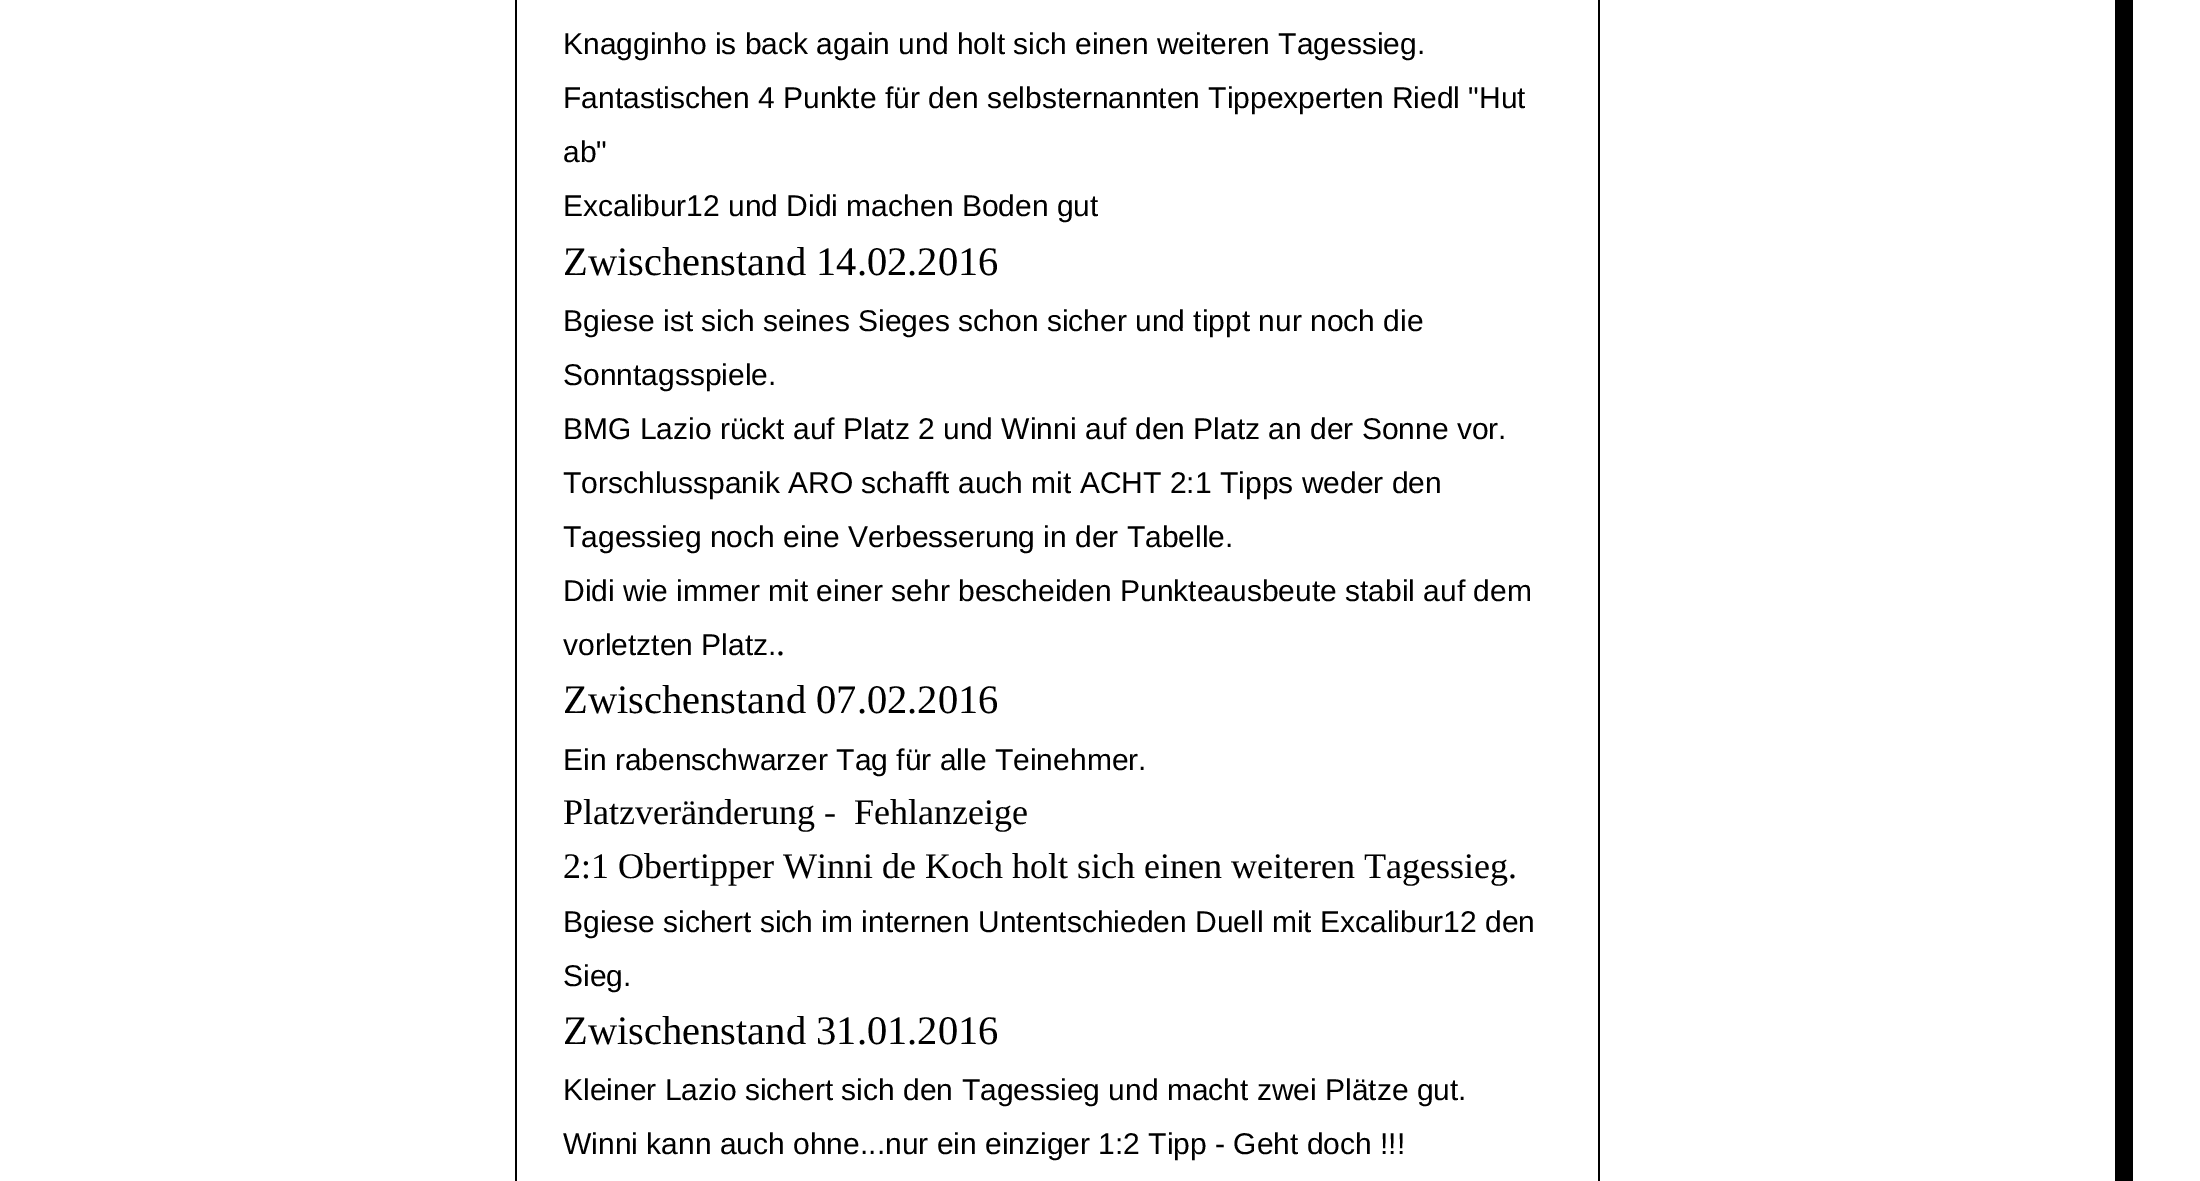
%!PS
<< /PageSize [2200 1181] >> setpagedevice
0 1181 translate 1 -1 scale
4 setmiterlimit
1 setgray
0 0 2200 1181 rectfill
0 setgray
2115 0 18 1181 rectfill
515 0 2 1181 rectfill
/LiberationSans-Regular [30 0 0 -30 0 0] selectfont
563 54 moveto (Knagginho is back again und holt sich einen weiteren Tagessieg.) show
563 108 moveto (Fantastischen 4 Punkte für den selbsternannten Tippexperten Riedl "Hut) show
563 162 moveto (ab") show
563 216 moveto (Excalibur12 und Didi machen Boden gut) show
/LiberationSerif-Regular [40.5 0 0 -40.5 0 0] selectfont
563 275 moveto (Zwischenstand 14.02.2016) show
/LiberationSans-Regular [30 0 0 -30 0 0] selectfont
563 331 moveto (Bgiese ist sich seines Sieges schon sicher und tippt nur noch die) show
563 385 moveto (Sonntagsspiele.) show
563 439 moveto (BMG Lazio rückt auf Platz 2 und Winni auf den Platz an der Sonne vor.) show
563 493 moveto (Torschlusspanik ARO schafft auch mit ACHT 2:1 Tipps weder den) show
563 547 moveto (Tagessieg noch eine Verbesserung in der Tabelle.) show
563 601 moveto (Didi wie immer mit einer sehr bescheiden Punkteausbeute stabil auf dem) show
563 655 moveto (vorletzten Platz.) show
/LiberationSerif-Regular [36 0 0 -36 0 0] selectfont
776 655 moveto (.) show
/LiberationSerif-Regular [40.5 0 0 -40.5 0 0] selectfont
563 713 moveto (Zwischenstand 07.02.2016) show
/LiberationSans-Regular [30 0 0 -30 0 0] selectfont
563 770 moveto (Ein rabenschwarzer Tag für alle Teinehmer.) show
/LiberationSerif-Regular [36 0 0 -36 0 0] selectfont
563 824 moveto (Platzveränderung -  Fehlanzeige) show
563 878 moveto (2:1 Obertipper Winni de Koch holt sich einen weiteren Tagessieg.) show
/LiberationSans-Regular [30 0 0 -30 0 0] selectfont
563 932 moveto (Bgiese sichert sich im internen Untentschieden Duell mit Excalibur12 den) show
563 986 moveto (Sieg.) show
/LiberationSerif-Regular [40.5 0 0 -40.5 0 0] selectfont
563 1044 moveto (Zwischenstand 31.01.2016) show
/LiberationSans-Regular [30 0 0 -30 0 0] selectfont
563 1100 moveto (Kleiner Lazio sichert sich den Tagessieg und macht zwei Plätze gut.) show
563 1154 moveto (Winni kann auch ohne...nur ein einziger 1:2 Tipp - Geht doch !!!) show
1598 0 2 1181 rectfill
showpage
